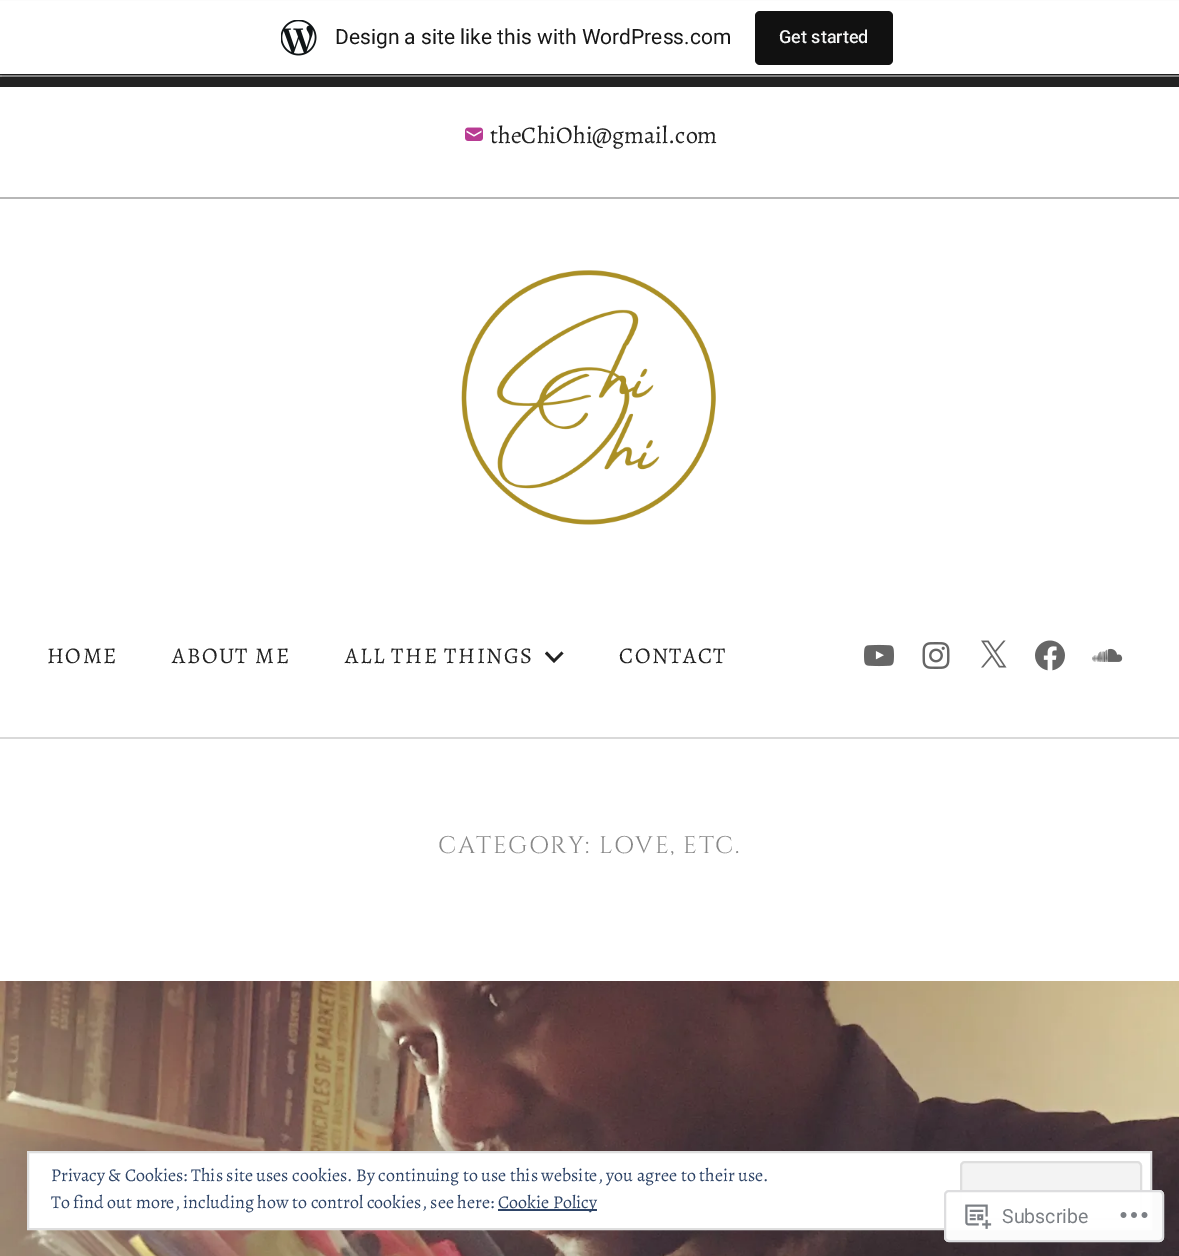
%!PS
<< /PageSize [1179 1256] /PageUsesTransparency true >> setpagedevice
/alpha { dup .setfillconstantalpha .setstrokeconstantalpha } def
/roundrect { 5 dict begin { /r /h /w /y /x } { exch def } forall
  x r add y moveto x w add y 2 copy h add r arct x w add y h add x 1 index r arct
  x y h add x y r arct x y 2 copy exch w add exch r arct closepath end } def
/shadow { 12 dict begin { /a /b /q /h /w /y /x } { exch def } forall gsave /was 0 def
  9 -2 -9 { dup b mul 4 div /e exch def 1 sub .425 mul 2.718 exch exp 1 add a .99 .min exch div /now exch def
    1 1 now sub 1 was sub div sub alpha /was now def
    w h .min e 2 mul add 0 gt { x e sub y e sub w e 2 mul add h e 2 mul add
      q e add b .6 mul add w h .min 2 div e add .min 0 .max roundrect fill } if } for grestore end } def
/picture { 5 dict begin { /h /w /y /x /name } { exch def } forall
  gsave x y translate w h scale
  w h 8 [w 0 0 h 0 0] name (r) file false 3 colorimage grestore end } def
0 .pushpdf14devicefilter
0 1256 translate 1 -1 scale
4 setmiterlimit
1 setgray
0 0 1179 1256 rectfill
0.133 setgray
0 74 1179 13 rectfill
0.569 setgray
0 75 1179 2 rectfill
0 setgray
0 2 1179 73 0 1.5 0.05 shadow
0.08 alpha
newpath 2 74 moveto 2 78 lineto 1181 78 lineto 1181 5 lineto 1179 5 lineto 1179 74 lineto closepath fill
1 alpha
1 setgray
0 1 1179 73 rectfill
(img1.rgb) 281 20 36 36 picture
/Roboto-Regular [21 0 0 -21 0 0] selectfont
0.09 setgray
335 44 moveto (Design a site like this with WordPress.com) show
0.067 setgray
755 11 138 54 5 roundrect fill
/Roboto-Medium [18 0 0 -18 0 0] selectfont
0.965 0.969 0.969 setrgbcolor
779 43 moveto (Get started) show
0.718 setgray
0 197 1179 2 rectfill
(img2.rgb) 465 127 18 14 picture
/Alegreya-Regular [24 0 0 -24 0 0] selectfont
0.133 setgray
490 143 moveto (theChiOhi@gmail.com) show
(img3.rgb) 461 270 255 255 picture
/Alegreya-Regular [22.5 0 0 -22.5 0 0] selectfont
47 663 moveto 1.5 0 (HOME) ashow
172 663 moveto 1.5 0 (ABOUT ME) ashow
345 663 moveto 1.5 0 (ALL THE THINGS) ashow
newpath 554 663 moveto 545 653.5 lineto 547 651.5 lineto 554 659 lineto 561.5 651.5 lineto 563.5 653.5 lineto closepath fill
619 663 moveto 1.5 0 (CONTACT) ashow
(img4.rgb) 864 644 30 23 picture
(img5.rgb) 922 642 28 27 picture
(img6.rgb) 981 640 26 28 picture
(img7.rgb) 1035 640 30 31 picture
(img8.rgb) 1092 648 31 14 picture
0.851 setgray
0 737 1179 2 rectfill
/Cinzel-Regular [24 0 0 -24 0 0] selectfont
0.533 setgray
438 853 moveto 1.5 0 (CATEGORY: LOVE, ETC.) ashow
(img9.rgb) 0 981 1179 275 picture
1 setgray
newpath 28 1152 moveto 1151 1152 lineto 1151 1229 lineto 28 1229 lineto closepath gsave fill grestore
0.871 setgray
2 setlinewidth
stroke
/Alegreya-Regular [18 0 0 -18 0 0] selectfont
0.18 0.267 0.404 setrgbcolor
51 1181 moveto (Privacy & Cookies: This site uses cookies. By continuing to use this website, you agree to their use.) show
0.953 setgray
961 1162 180 57 4 roundrect gsave fill grestore
0.871 setgray
stroke
0.18 0.267 0.404 setrgbcolor
51 1208 moveto (To find out more, including how to control cookies, see here:) show
498 1209 99 2 rectfill
498 1208 moveto (Cookie Policy) show
0.98 alpha
1 setgray
944 1190 220 52 5 roundrect fill
0.863 0.863 0.871 setrgbcolor
945 1191 218 50 4 roundrect stroke
1 alpha
(img10.rgb) 965 1204 27 25 picture
/Roboto-Regular [19.5 0 0 -19.5 0 0] selectfont
0.482 0.498 0.518 setrgbcolor
1002 1223 moveto (Subscribe) show
(img11.rgb) 1120 1212 28 6 picture
.poppdf14devicefilter showpage
